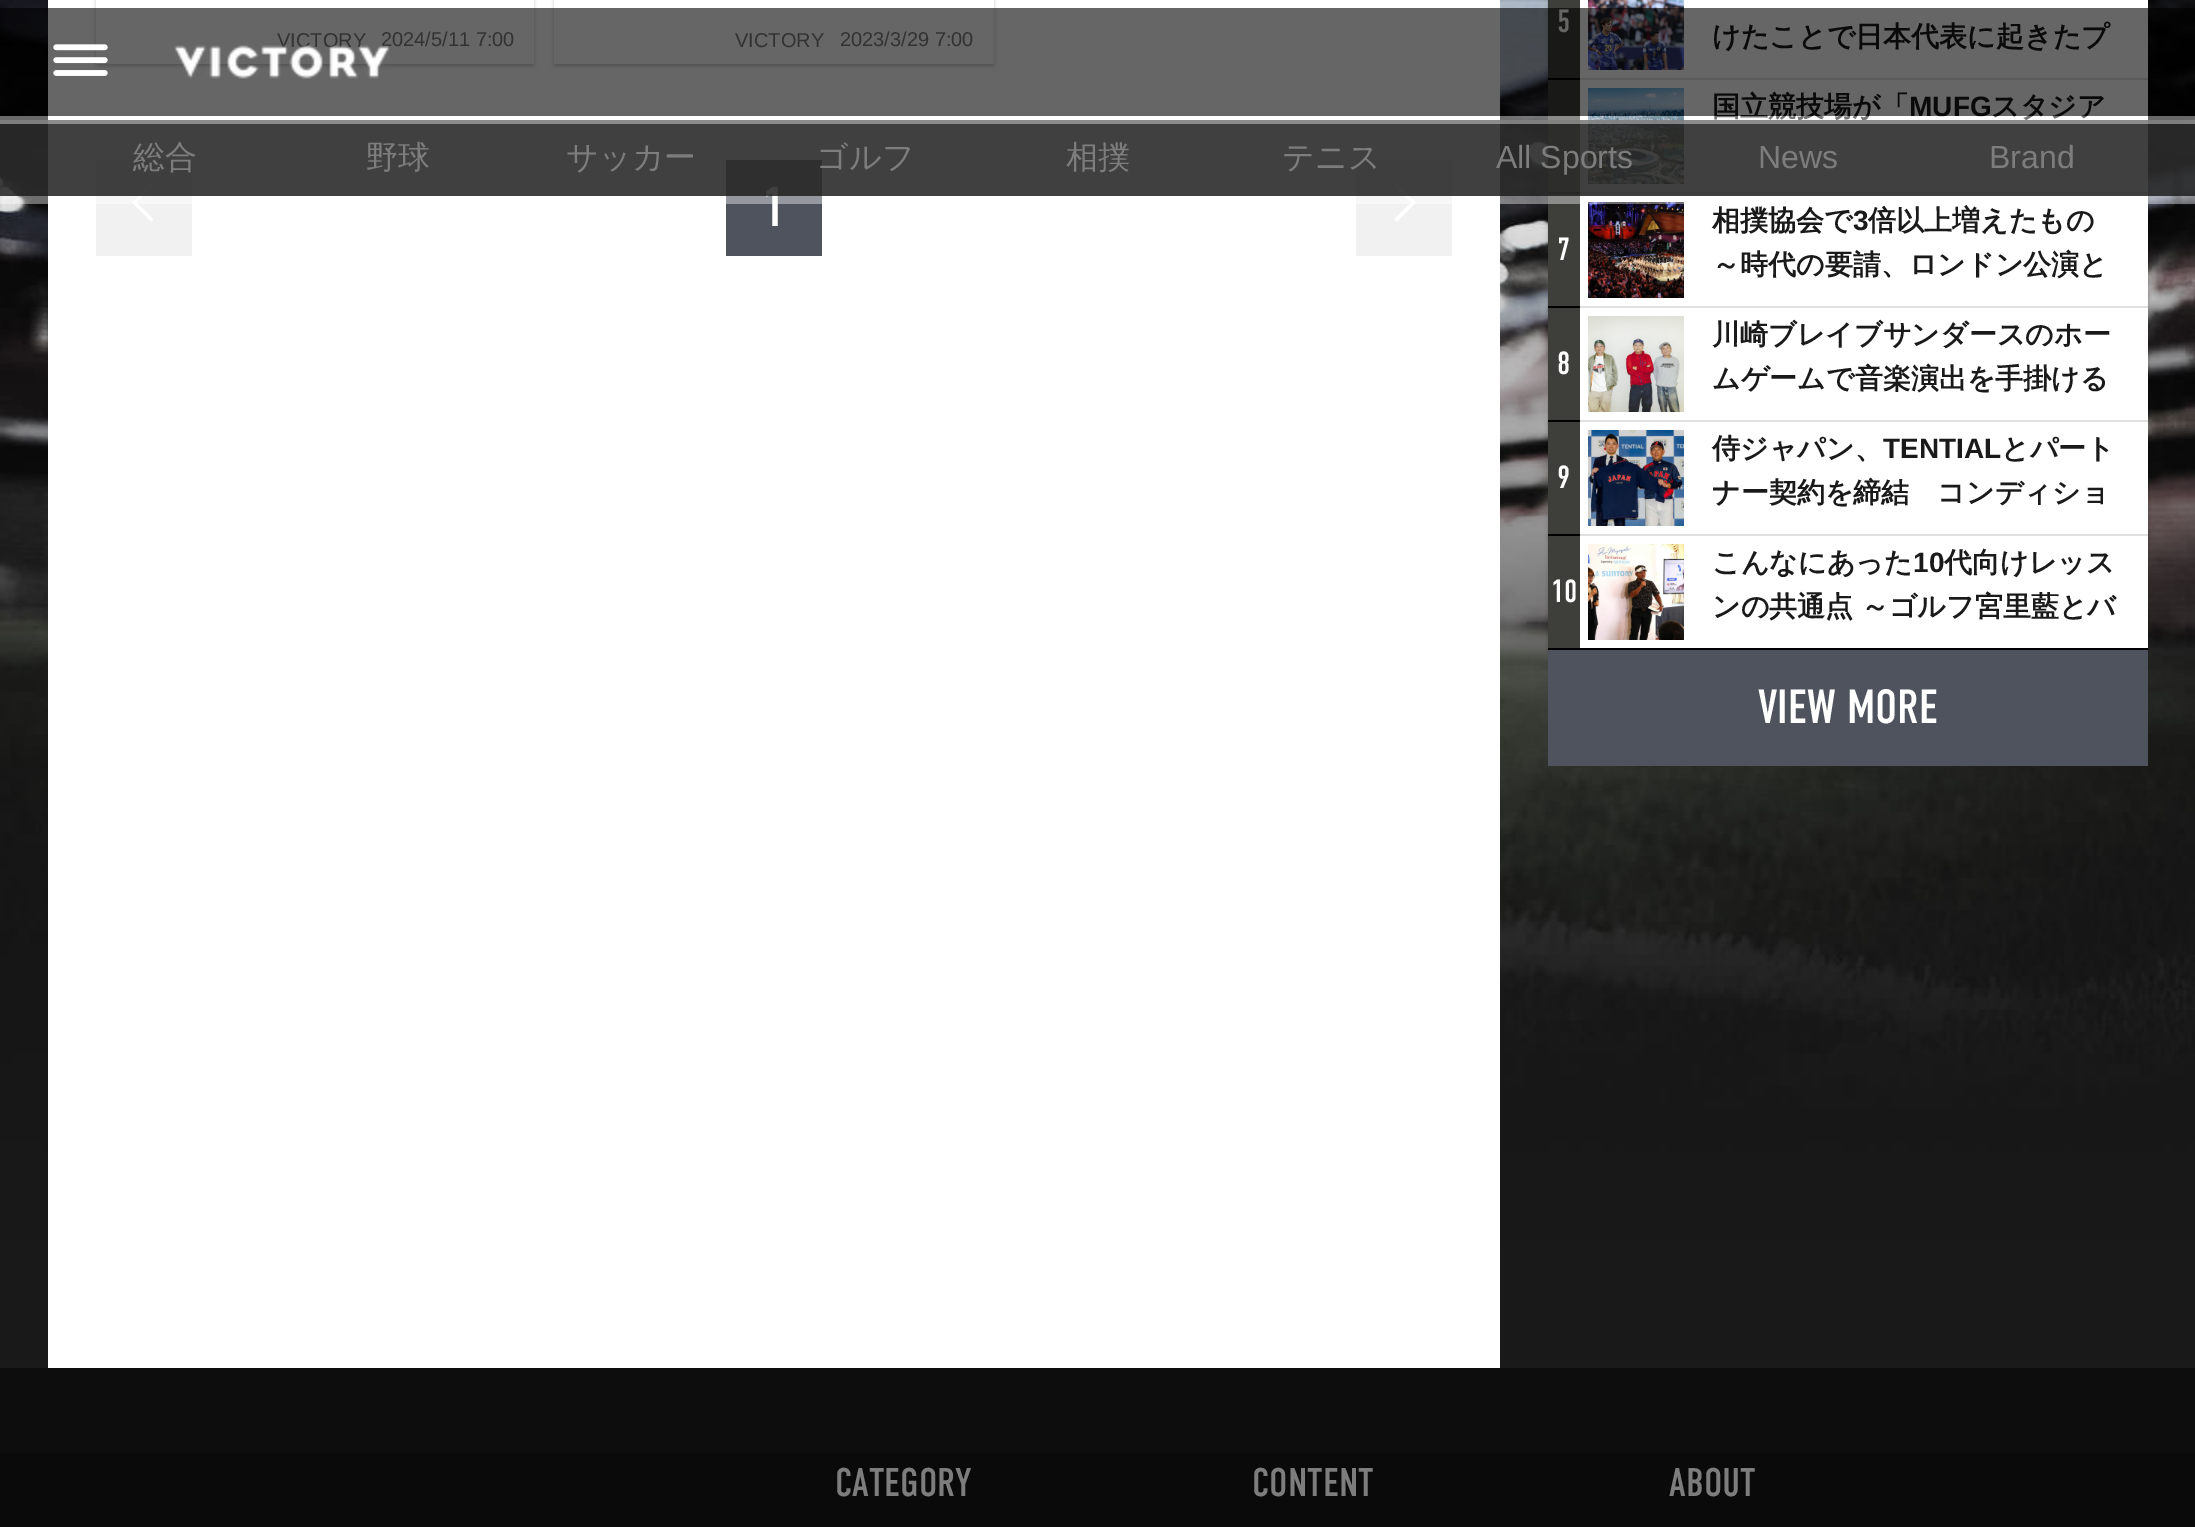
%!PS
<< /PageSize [2195 1527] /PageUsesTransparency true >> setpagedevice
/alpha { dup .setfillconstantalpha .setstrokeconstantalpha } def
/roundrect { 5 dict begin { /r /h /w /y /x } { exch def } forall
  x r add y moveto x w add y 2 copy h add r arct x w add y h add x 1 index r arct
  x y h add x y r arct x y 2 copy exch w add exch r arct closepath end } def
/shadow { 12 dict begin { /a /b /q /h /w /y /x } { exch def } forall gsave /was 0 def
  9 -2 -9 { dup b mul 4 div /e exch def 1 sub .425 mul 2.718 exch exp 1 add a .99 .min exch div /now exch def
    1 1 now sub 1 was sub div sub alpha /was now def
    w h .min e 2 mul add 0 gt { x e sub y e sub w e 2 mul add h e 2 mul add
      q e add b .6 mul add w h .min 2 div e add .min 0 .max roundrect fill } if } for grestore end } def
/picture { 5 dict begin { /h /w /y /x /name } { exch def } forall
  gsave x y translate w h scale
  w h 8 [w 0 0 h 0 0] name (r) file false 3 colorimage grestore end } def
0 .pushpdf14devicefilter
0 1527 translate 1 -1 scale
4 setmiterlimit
0.078 setgray
0 0 2195 1527 rectfill
(img1.rgb) 0 0 2195 1454 picture
1 setgray
48 0 1452 1368 rectfill
gsave
newpath 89 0 moveto 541 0 lineto 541 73 lineto 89 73 lineto closepath 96 -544 moveto 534 -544 lineto 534 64 lineto 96 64 lineto closepath eoclip newpath
0 setgray
96 -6 438 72 0 2 0.2 shadow
grestore
/LiberationSans-Regular [20 0 0 -20 0 0] selectfont
0.49 setgray
277 47 moveto (VICTORY) show
381 46 moveto (2024/5/11 7:00) show
gsave
newpath 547 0 moveto 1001 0 lineto 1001 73 lineto 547 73 lineto closepath 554 -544 moveto 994 -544 lineto 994 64 lineto 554 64 lineto closepath eoclip newpath
0 setgray
554 -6 440 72 0 2 0.2 shadow
grestore
735 47 moveto (VICTORY) show
840 46 moveto (2023/3/29 7:00) show
0 setgray
1548 -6 600 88 0 2 0.2 shadow
1548 82 600 114 0 2 0.2 shadow
0.243 0.243 0.227 setrgbcolor
1548 0 32 78 rectfill
0 setgray
1548 78 32 2 rectfill
/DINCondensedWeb-Regular [32 0 0 -32 0 0] selectfont
1 setgray
1557 32 moveto (5) show
1580 0 568 78 rectfill
0.878 setgray
1580 78 568 2 rectfill
(img5.rgb) 1588 0 96 70 picture
/WenQuanYiZenHei-Bold [28 0 0 -28 0 0] selectfont
0.102 setgray
1712 46 moveto (けたことで日本代表に起きたプ) show
0 setgray
1548 196 600 114 0 2 0.2 shadow
0.243 0.243 0.227 setrgbcolor
1548 80 32 112 rectfill
1 setgray
1580 80 568 112 rectfill
(img6.rgb) 1588 88 96 96 picture
0.102 setgray
1712 116 moveto (国立競技場が「) show
/LiberationSans-Bold [28 0 0 -28 0 0] selectfont
1909 116 moveto (MUFG) show
/WenQuanYiZenHei-Bold [28 0 0 -28 0 0] selectfont
1991 116 moveto (スタジア) show
0.6 alpha
0 setgray
0 8 2195 108 rectfill
1 alpha
(img2.rgb) 53 44 55 32 picture
(img3.rgb) 174 45 216 34 picture
0.945 setgray
96 160 96 96 rectfill
(img4.rgb) 132 184 21 38 picture
0.31 0.325 0.369 setrgbcolor
726 160 96 96 rectfill
/DINCondensedWeb-Regular [56 0 0 -56 0 0] selectfont
1 setgray
762 226 moveto (1) show
0.945 setgray
1356 160 96 96 rectfill
1 setgray
newpath 1397 184 moveto 1397 183 1394 185.5 1395 186.5 curveto 1411 202.5 lineto 1394.5 219 lineto 1395 220 lineto 1397.5 222.5 1397 221.5 1400 218.5 curveto 1412.5 206 lineto 1416.5 201.5 1416.5 203 1412.5 199 curveto closepath fill
0 setgray
1548 192 32 2 rectfill
0.878 setgray
1580 192 568 2 rectfill
0 setgray
1548 310 600 114 0 2 0.2 shadow
0.243 0.243 0.227 setrgbcolor
1548 194 32 112 rectfill
1 setgray
1580 194 568 112 rectfill
0.9 alpha
0.169 setgray
0 120 2195 76 rectfill
0.4 alpha
1 setgray
0 116 2195 8 rectfill
1 alpha
0 setgray
1548 306 32 2 rectfill
/DINCondensedWeb-Regular [32 0 0 -32 0 0] selectfont
1 setgray
1557 260 moveto (7) show
0.878 setgray
1580 306 568 2 rectfill
(img7.rgb) 1588 202 96 96 picture
/WenQuanYiZenHei-Bold [28 0 0 -28 0 0] selectfont
0.102 setgray
1712 230 moveto (相撲協会で) show
/LiberationSans-Bold [28 0 0 -28 0 0] selectfont
1853 230 moveto (3) show
/WenQuanYiZenHei-Bold [28 0 0 -28 0 0] selectfont
1868 230 moveto (倍以上増えたもの) show
1712 274 moveto (～時代の要請、ロンドン公演と) show
0 setgray
1548 424 600 114 0 2 0.2 shadow
0.243 0.243 0.227 setrgbcolor
1548 308 32 112 rectfill
0 setgray
1548 420 32 2 rectfill
/DINCondensedWeb-Regular [32 0 0 -32 0 0] selectfont
1 setgray
1557 374 moveto (8) show
1580 308 568 112 rectfill
0.878 setgray
1580 420 568 2 rectfill
(img8.rgb) 1588 316 96 96 picture
/WenQuanYiZenHei-Bold [28 0 0 -28 0 0] selectfont
0.102 setgray
1712 344 moveto (川崎ブレイブサンダースのホー) show
1712 388 moveto (ムゲームで音楽演出を手掛ける) show
0 setgray
1548 538 600 114 0 2 0.2 shadow
0.243 0.243 0.227 setrgbcolor
1548 422 32 112 rectfill
0 setgray
1548 534 32 2 rectfill
/DINCondensedWeb-Regular [32 0 0 -32 0 0] selectfont
1 setgray
1557 488 moveto (9) show
1580 422 568 112 rectfill
0.878 setgray
1580 534 568 2 rectfill
(img9.rgb) 1588 430 96 96 picture
/WenQuanYiZenHei-Bold [28 0 0 -28 0 0] selectfont
0.102 setgray
1712 458 moveto (侍ジャパン、) show
/LiberationSans-Bold [28 0 0 -28 0 0] selectfont
1883 458 moveto (TENTIAL) show
/WenQuanYiZenHei-Bold [28 0 0 -28 0 0] selectfont
2001 458 moveto (とパート) show
1712 502 moveto (ナー契約を締結　コンディショ) show
0.243 0.243 0.227 setrgbcolor
1548 536 32 112 rectfill
0 setgray
1548 648 600 2 rectfill
/DINCondensedWeb-Regular [32 0 0 -32 0 0] selectfont
1 setgray
1551 602 moveto (10) show
1580 536 568 112 rectfill
(img10.rgb) 1588 544 96 96 picture
/WenQuanYiZenHei-Bold [28 0 0 -28 0 0] selectfont
0.102 setgray
1712 572 moveto (こんなにあった) show
/LiberationSans-Bold [28 0 0 -28 0 0] selectfont
1913 572 moveto (10) show
/WenQuanYiZenHei-Bold [28 0 0 -28 0 0] selectfont
1944 572 moveto (代向けレッス) show
1712 616 moveto -1 0 32 (ンの共通点 ～ゴルフ宮里藍とバ) widthshow
0.31 0.325 0.369 setrgbcolor
1548 650 600 116 rectfill
/DINCondensedWeb-Regular [48 0 0 -48 0 0] selectfont
1 setgray
1758 723 moveto (VIEW MORE) show
/WenQuanYiZenHei-Medium [32 0 0 -32 0 0] selectfont
0.49 setgray
133 168 moveto (総合) show
366 168 moveto (野球) show
566 168 moveto (サッカー) show
816 168 moveto (ゴルフ) show
1066 168 moveto (相撲) show
1282 168 moveto (テニス) show
/LiberationSans-Regular [32 0 0 -32 0 0] selectfont
1496 168 moveto (All Sports) show
1758 168 moveto (News) show
1989 168 moveto (Brand) show
0.4 alpha
1 setgray
0 196 2195 8 rectfill
0.5 alpha
0 setgray
0 1368 2195 159 rectfill
/DINCondensedWeb-Regular [40 0 0 -40 0 0] selectfont
1 alpha
0.49 setgray
835 1496 moveto (CATEGORY) show
1252 1496 moveto (CONTENT) show
1669 1496 moveto (ABOUT) show
.poppdf14devicefilter showpage
